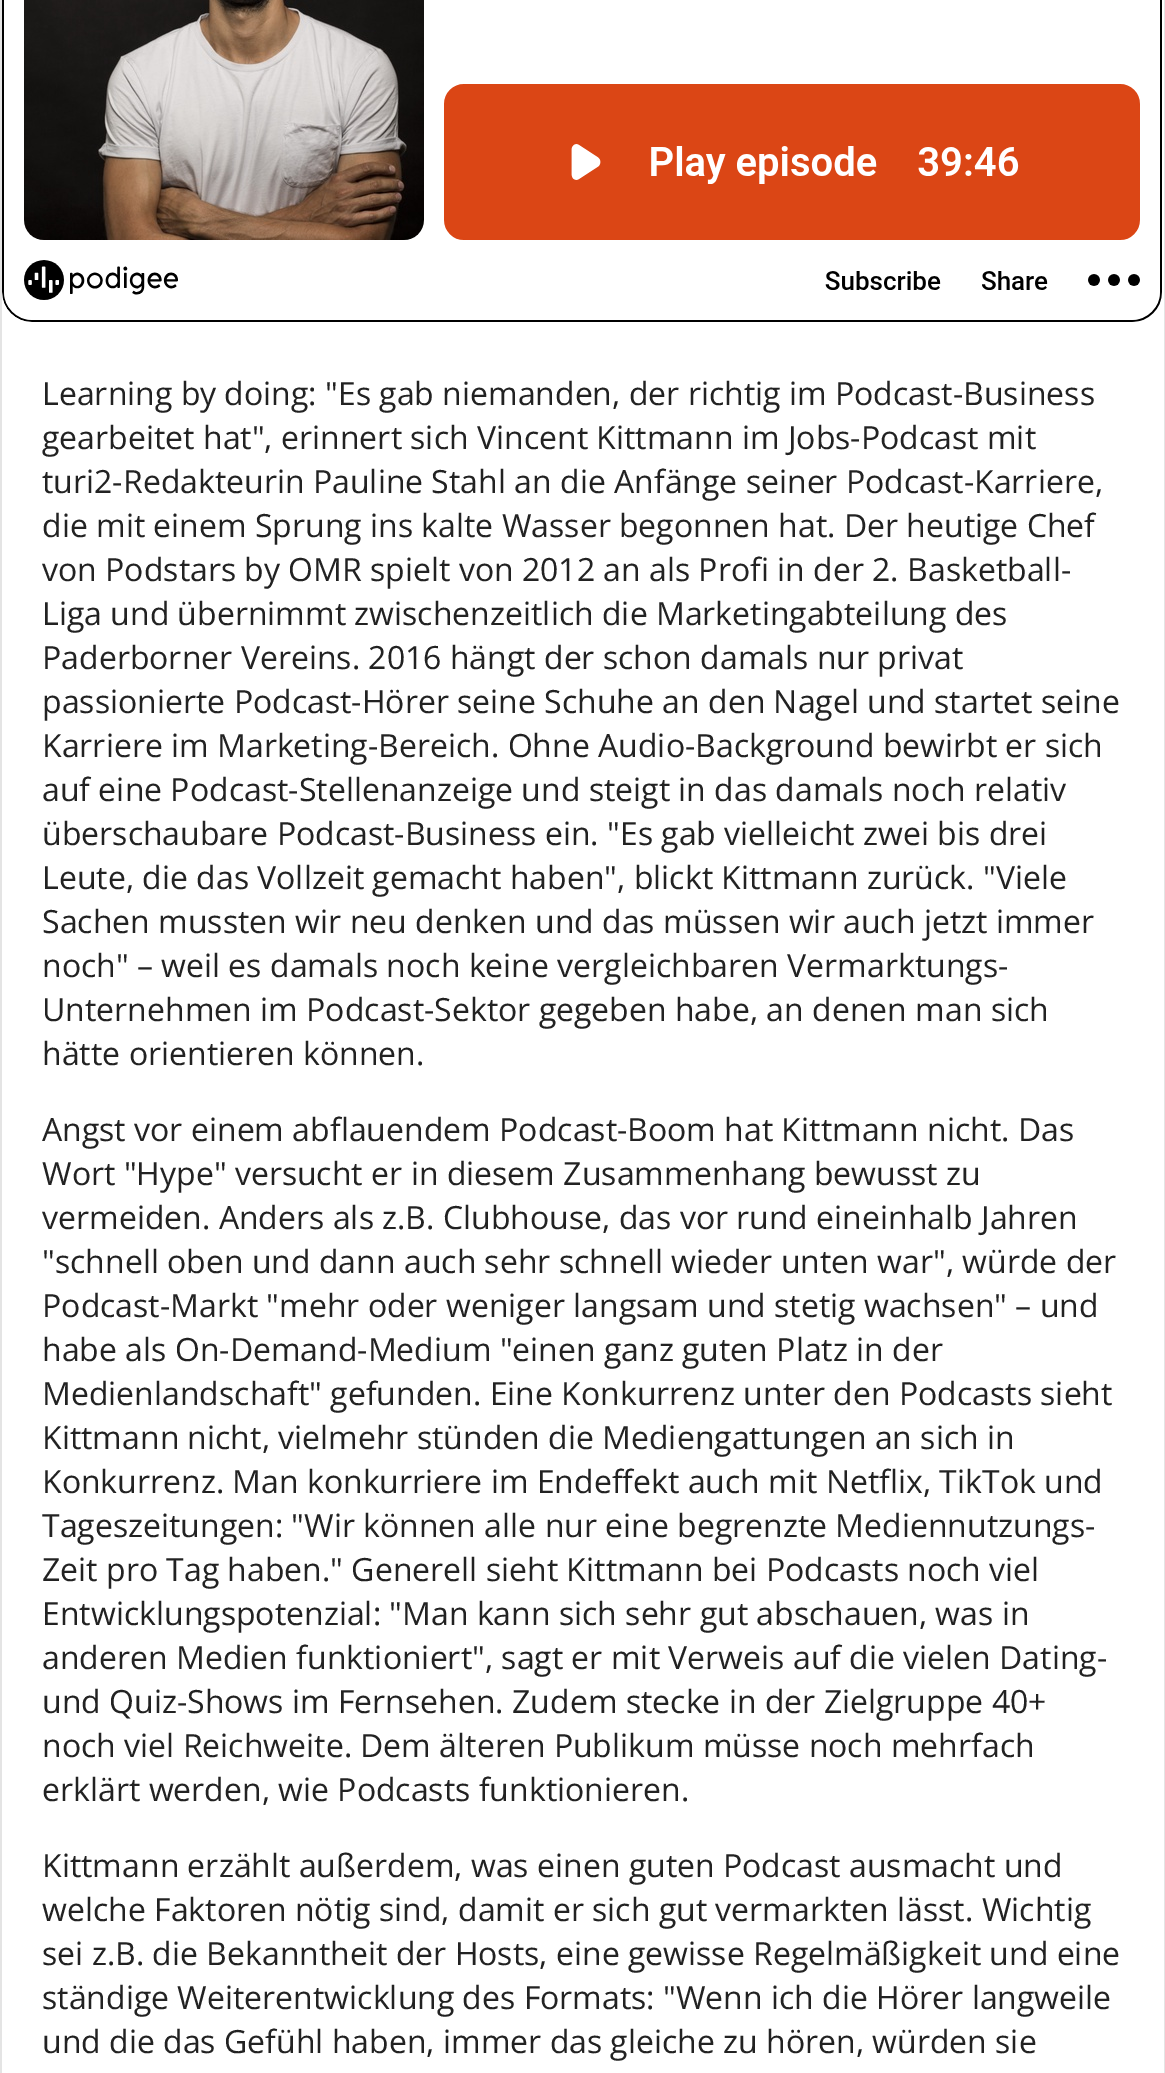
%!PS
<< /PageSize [1165 2073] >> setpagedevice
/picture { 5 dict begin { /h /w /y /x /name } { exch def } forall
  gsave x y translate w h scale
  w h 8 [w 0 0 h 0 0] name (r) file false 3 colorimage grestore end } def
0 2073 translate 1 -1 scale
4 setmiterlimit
1 setgray
0 0 1165 2073 rectfill
0.894 setgray
1164 0 1 2073 rectfill
0 0 2 2073 rectfill
(img1.rgb) 2 0 1160 322 picture
/OpenSans-Regular [32 0 0 -32 0 0] selectfont
0.133 setgray
42 405 moveto (Learning by doing: "Es gab niemanden, der richtig im Podcast-Business) show
42 449 moveto (gearbeitet hat", erinnert sich Vincent Kittmann im Jobs-Podcast mit) show
42 493 moveto (turi2-Redakteurin Pauline Stahl an die Anfänge seiner Podcast-Karriere,) show
42 537 moveto (die mit einem Sprung ins kalte Wasser begonnen hat. Der heutige Chef) show
42 581 moveto (von Podstars by OMR spielt von 2012 an als Profi in der 2. Basketball-) show
42 625 moveto (Liga und übernimmt zwischenzeitlich die Marketingabteilung des) show
42 669 moveto (Paderborner Vereins. 2016 hängt der schon damals nur privat) show
42 713 moveto (passionierte Podcast-Hörer seine Schuhe an den Nagel und startet seine) show
42 757 moveto (Karriere im Marketing-Bereich. Ohne Audio-Background bewirbt er sich) show
42 801 moveto (auf eine Podcast-Stellenanzeige und steigt in das damals noch relativ) show
42 845 moveto (überschaubare Podcast-Business ein. "Es gab vielleicht zwei bis drei) show
42 889 moveto (Leute, die das Vollzeit gemacht haben", blickt Kittmann zurück. "Viele) show
42 933 moveto (Sachen mussten wir neu denken und das müssen wir auch jetzt immer) show
42 977 moveto (noch" – weil es damals noch keine vergleichbaren Vermarktungs-) show
42 1021 moveto (Unternehmen im Podcast-Sektor gegeben habe, an denen man sich) show
42 1065 moveto (hätte orientieren können.) show
42 1141 moveto (Angst vor einem abflauendem Podcast-Boom hat Kittmann nicht. Das) show
42 1185 moveto (Wort "Hype" versucht er in diesem Zusammenhang bewusst zu) show
42 1229 moveto (vermeiden. Anders als z.B. Clubhouse, das vor rund eineinhalb Jahren) show
42 1273 moveto ("schnell oben und dann auch sehr schnell wieder unten war", würde der) show
42 1317 moveto (Podcast-Markt "mehr oder weniger langsam und stetig wachsen" – und) show
42 1361 moveto (habe als On-Demand-Medium "einen ganz guten Platz in der) show
42 1405 moveto (Medienlandschaft" gefunden. Eine Konkurrenz unter den Podcasts sieht) show
42 1449 moveto (Kittmann nicht, vielmehr stünden die Mediengattungen an sich in) show
42 1493 moveto (Konkurrenz. Man konkurriere im Endeffekt auch mit Netflix, TikTok und) show
42 1537 moveto (Tageszeitungen: "Wir können alle nur eine begrenzte Mediennutzungs-) show
42 1581 moveto (Zeit pro Tag haben." Generell sieht Kittmann bei Podcasts noch viel) show
42 1625 moveto (Entwicklungspotenzial: "Man kann sich sehr gut abschauen, was in) show
42 1669 moveto (anderen Medien funktioniert", sagt er mit Verweis auf die vielen Dating-) show
42 1713 moveto (und Quiz-Shows im Fernsehen. Zudem stecke in der Zielgruppe 40+) show
42 1757 moveto (noch viel Reichweite. Dem älteren Publikum müsse noch mehrfach) show
42 1801 moveto (erklärt werden, wie Podcasts funktionieren.) show
42 1877 moveto (Kittmann erzählt außerdem, was einen guten Podcast ausmacht und) show
42 1921 moveto (welche Faktoren nötig sind, damit er sich gut vermarkten lässt. Wichtig) show
42 1965 moveto (sei z.B. die Bekanntheit der Hosts, eine gewisse Regelmäßigkeit und eine) show
42 2009 moveto (ständige Weiterentwicklung des Formats: "Wenn ich die Hörer langweile) show
42 2053 moveto (und die das Gefühl haben, immer das gleiche zu hören, würden sie) show
showpage
